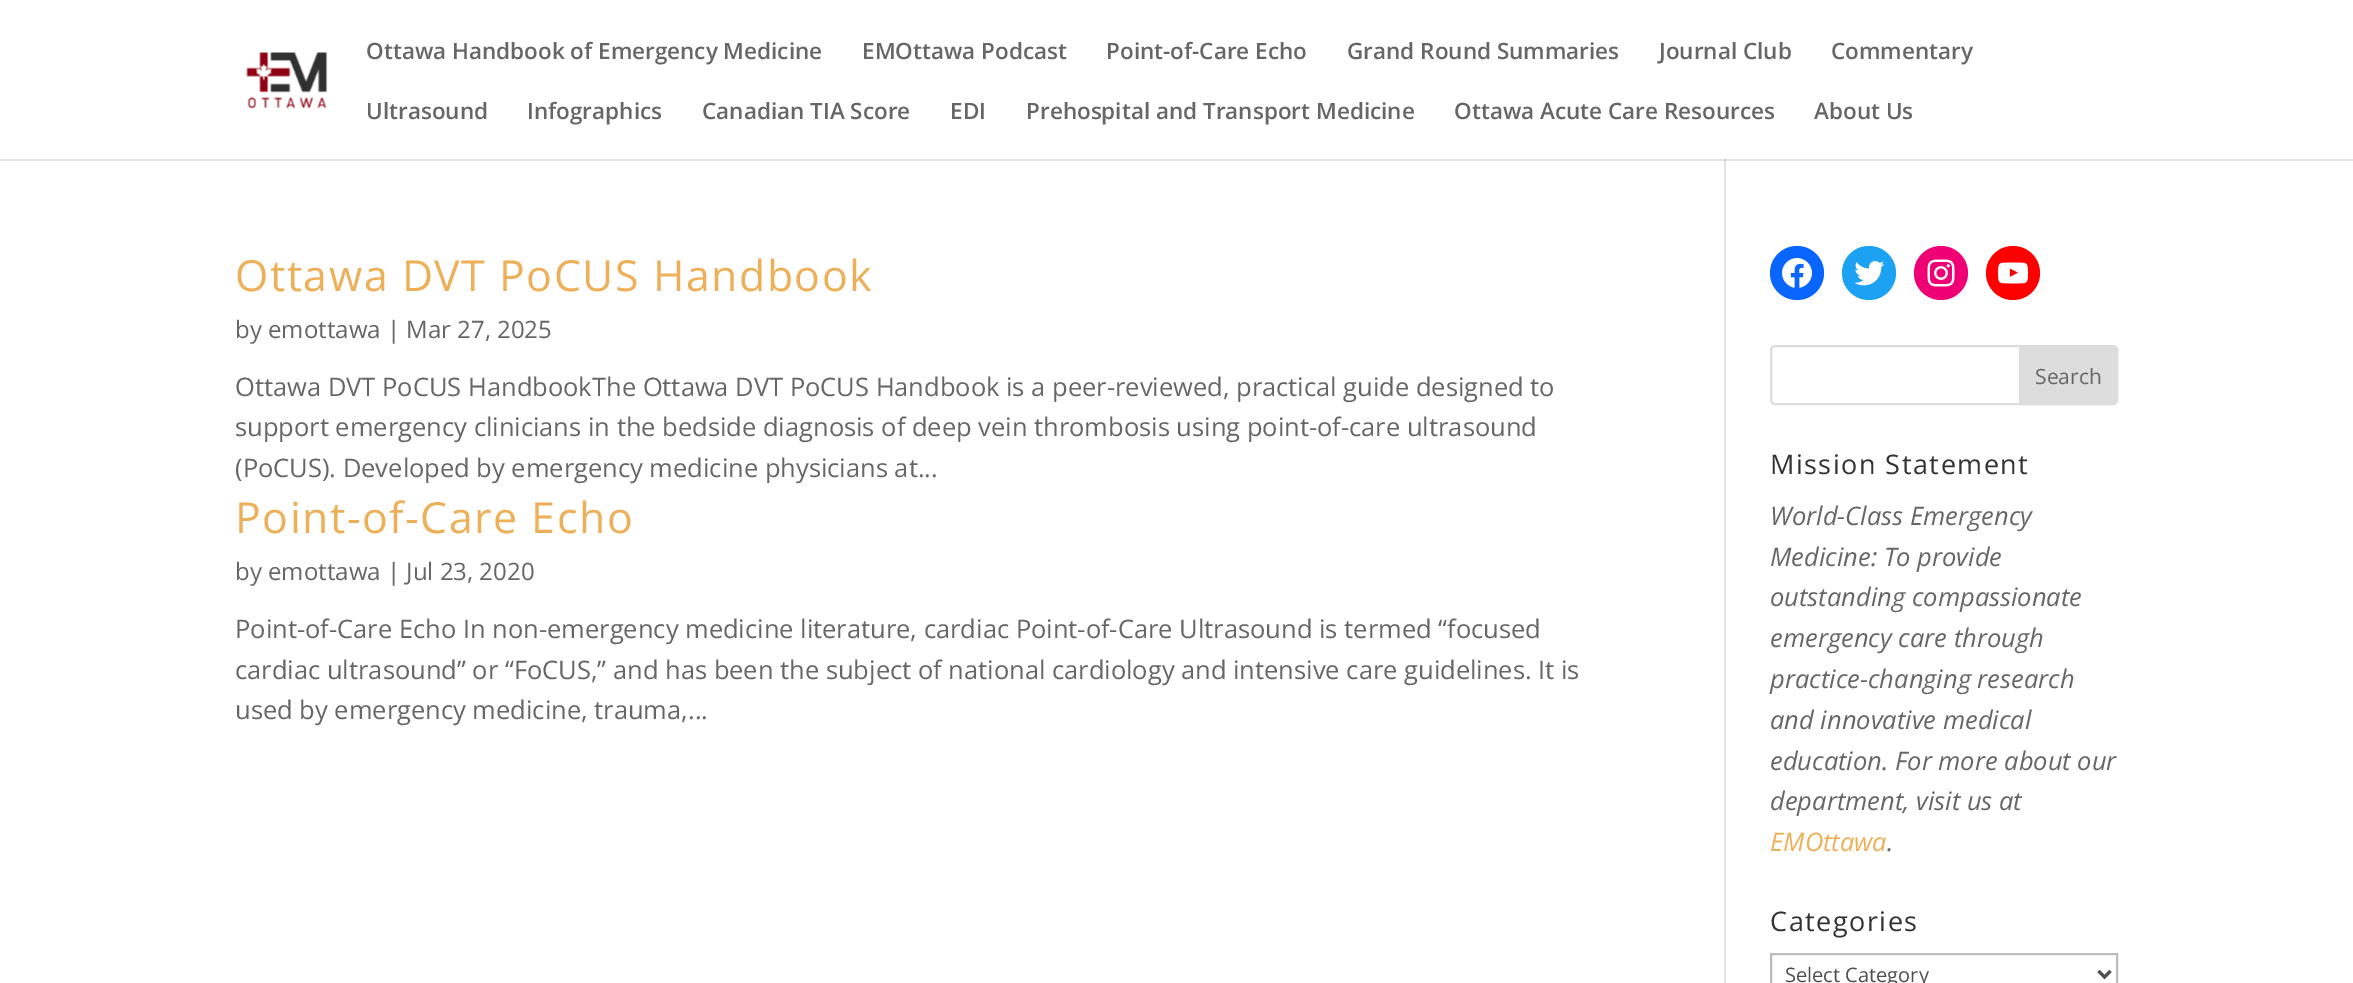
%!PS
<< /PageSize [2353 983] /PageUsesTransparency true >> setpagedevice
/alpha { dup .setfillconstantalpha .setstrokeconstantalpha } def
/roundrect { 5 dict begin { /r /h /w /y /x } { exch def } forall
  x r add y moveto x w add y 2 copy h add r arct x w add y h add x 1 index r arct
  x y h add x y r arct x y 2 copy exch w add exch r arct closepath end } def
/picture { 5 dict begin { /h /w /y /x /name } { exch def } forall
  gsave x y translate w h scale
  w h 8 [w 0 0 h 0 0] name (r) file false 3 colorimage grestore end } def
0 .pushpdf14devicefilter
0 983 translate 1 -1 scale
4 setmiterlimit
1 setgray
0 0 2353 983 rectfill
0.886 setgray
1724 159 2 824 rectfill
0.1 alpha
0 setgray
newpath 0 159 moveto 0 161 lineto 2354 161 lineto 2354 2 lineto 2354 159 lineto closepath fill
1 alpha
(img1.rgb) 246 52 82 57 picture
/OpenSans-SemiBold [22.5 0 0 -22.5 0 0] selectfont
0.4 setgray
366 59 moveto (Ottawa Handbook of Emergency Medicine) show
862 59 moveto (EMOttawa Podcast) show
1106 59 moveto (Point-of-Care Echo) show
1347 59 moveto (Grand Round Summaries) show
1659 59 moveto (Journal Club) show
1831 59 moveto (Commentary) show
366 119 moveto (Ultrasound) show
527 119 moveto (Infographics) show
702 119 moveto (Canadian TIA Score) show
950 119 moveto (EDI) show
1026 119 moveto (Prehospital and Transport Medicine) show
1454 119 moveto (Ottawa Acute Care Resources) show
1814 119 moveto (About Us) show
/OpenSans-Regular [42.9 0 0 -42.9 0 0] selectfont
0.929 0.69 0.349 setrgbcolor
235 291 moveto 1.5 0 (Ottawa DVT PoCUS Handbook) ashow
/OpenSans-Regular [24 0 0 -24 0 0] selectfont
0.4 setgray
235 338 moveto (by emottawa | Mar 27, 2025) show
/OpenSans-Regular [25.5 0 0 -25.5 0 0] selectfont
235 396 moveto (Ottawa DVT PoCUS HandbookThe Ottawa DVT PoCUS Handbook is a peer-reviewed, practical guide designed to) show
235 436 moveto (support emergency clinicians in the bedside diagnosis of deep vein thrombosis using point-of-care ultrasound) show
235 477 moveto (\(PoCUS\). Developed by emergency medicine physicians at...) show
/OpenSans-Regular [42.9 0 0 -42.9 0 0] selectfont
0.929 0.69 0.349 setrgbcolor
235 533 moveto 1.5 0 (Point-of-Care Echo) ashow
/OpenSans-Regular [24 0 0 -24 0 0] selectfont
0.4 setgray
235 580 moveto (by emottawa | Jul 23, 2020) show
/OpenSans-Regular [25.5 0 0 -25.5 0 0] selectfont
235 638 moveto (Point-of-Care Echo In non-emergency medicine literature, cardiac Point-of-Care Ultrasound is termed “focused) show
235 679 moveto (cardiac ultrasound” or “FoCUS,” and has been the subject of national cardiology and intensive care guidelines. It is) show
235 719 moveto (used by emergency medicine, trauma,...) show
0.031 0.4 1 setrgbcolor
newpath 1797 273 27 0 360 arc closepath fill
(img2.rgb) 1782 258 30 30 picture
0.114 0.631 0.949 setrgbcolor
newpath 1869 273 27 0 360 arc closepath fill
(img3.rgb) 1854 261 31 25 picture
0.941 0 0.459 setrgbcolor
newpath 1941 273 27 0 360 arc closepath fill
(img4.rgb) 1927 259 28 28 picture
1 0 0 setrgbcolor
newpath 2013 273 27 0 360 arc closepath fill
(img5.rgb) 1998 262 30 22 picture
0.867 setgray
2 setlinewidth
1771 346 346 58 4 roundrect stroke
newpath 2020 346 moveto 2113 346 lineto 2115 346 2117 348 2117 350 curveto 2117 400 lineto 2117 402 2115 404 2113 404 curveto 2020 404 lineto closepath gsave fill grestore
stroke
/OpenSans-Regular [21 0 0 -21 0 0] selectfont
0.4 setgray
2035 384 moveto (Search) show
/OpenSans-Regular [27 0 0 -27 0 0] selectfont
0.2 setgray
1770 474 moveto 1.5 0 (Mission Statement) ashow
/OpenSans-Italic [25.5 0 0 -25.5 0 0] selectfont
0.4 setgray
1770 525 moveto (World-Class Emergency) show
1770 566 moveto (Medicine: To provide) show
1770 606 moveto (outstanding compassionate) show
1770 647 moveto (emergency care through) show
1770 688 moveto (practice-changing research) show
1770 729 moveto (and innovative medical) show
1770 770 moveto (education. For more about our) show
1770 810 moveto (department, visit us at) show
0.929 0.69 0.349 setrgbcolor
1770 851 moveto (EMOttawa) show
0.4 setgray
1887 851 moveto (.) show
/OpenSans-Regular [27 0 0 -27 0 0] selectfont
0.2 setgray
1770 931 moveto 1.5 0 (Categories) ashow
0.733 setgray
1771 954 346 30 rectstroke
0.306 setgray
3 setlinewidth
newpath 2098.5 971 moveto 2104.5 977 lineto 2110.5 971 lineto stroke
/OpenSans-Regular [20 0 0 -20 0 0] selectfont
1785 982 moveto (Select Category) show
.poppdf14devicefilter showpage
